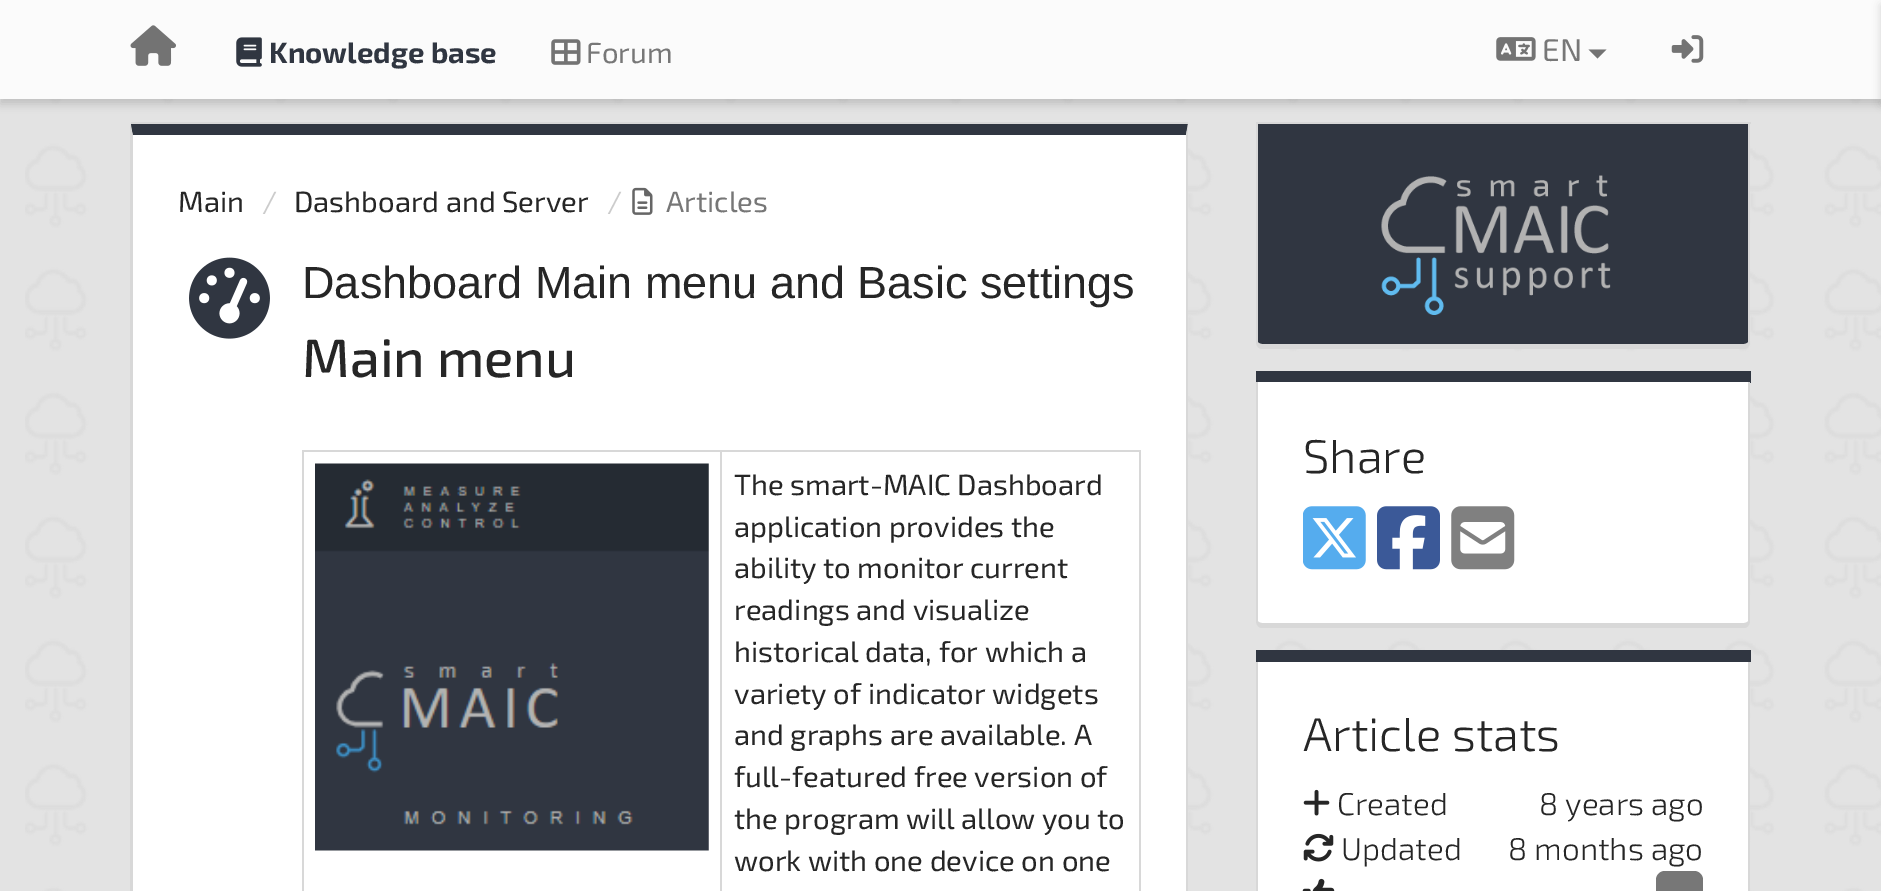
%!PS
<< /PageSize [1881 891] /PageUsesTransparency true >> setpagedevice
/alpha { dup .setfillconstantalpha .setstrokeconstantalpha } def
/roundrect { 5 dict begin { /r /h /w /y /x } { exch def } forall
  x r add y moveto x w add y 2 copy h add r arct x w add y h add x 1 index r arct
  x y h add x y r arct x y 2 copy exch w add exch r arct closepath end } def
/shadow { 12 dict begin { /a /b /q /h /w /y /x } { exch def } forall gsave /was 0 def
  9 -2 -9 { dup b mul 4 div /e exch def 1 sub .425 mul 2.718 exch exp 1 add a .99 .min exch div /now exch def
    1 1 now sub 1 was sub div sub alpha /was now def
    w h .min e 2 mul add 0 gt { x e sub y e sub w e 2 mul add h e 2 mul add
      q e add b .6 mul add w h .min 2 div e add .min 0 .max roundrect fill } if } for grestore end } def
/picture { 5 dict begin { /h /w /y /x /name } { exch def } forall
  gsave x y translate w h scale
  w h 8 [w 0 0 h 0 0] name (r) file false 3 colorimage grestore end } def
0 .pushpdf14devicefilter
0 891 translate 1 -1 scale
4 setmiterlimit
0.89 setgray
0 0 1881 891 rectfill
(img1.rgb) 25 99 1856 792 picture
0 setgray
0 5 1881 99 0 4.5 0.15 shadow
0.984 setgray
0 0 1881 99 rectfill
(img2.rgb) 130 25 46 41 picture
(img3.rgb) 236 37 26 30 picture
/Exo2-Bold [29.25 0 0 -29.25 0 0] selectfont
0.188 0.212 0.255 setrgbcolor
269 63 moveto (Knowledge base) show
(img4.rgb) 551 39 30 26 picture
/Exo2-Regular [29.25 0 0 -29.25 0 0] selectfont
0.467 setgray
586 63 moveto (Forum) show
(img5.rgb) 1496 37 40 24 picture
/Exo2-Regular [31.5 0 0 -31.5 0 0] selectfont
1542 61 moveto (EN) show
0.451 setgray
newpath 1588.5 49.5 moveto 1606.5 49.5 lineto 1597.5 58.5 lineto closepath fill
(img6.rgb) 1671 35 33 28 picture
0 setgray
1881 5 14 99 0 4.5 0.15 shadow
0.847 setgray
131 122 1057 2 rectfill
1 setgray
newpath 133 135 moveto 1186 135 lineto 1186 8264 lineto 1186 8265 1184 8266 1181 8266 curveto 137 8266 lineto 135 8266 133 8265 133 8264 curveto closepath fill
0.188 0.212 0.255 setrgbcolor
newpath 133 135 moveto 1186 135 lineto 1188 124 lineto 131 124 lineto 133 136 lineto closepath fill
0.847 setgray
newpath 1188 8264 moveto 1188 124 lineto 1186 135 lineto 1186 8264 lineto 1185 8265 lineto 1187 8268 lineto 1187 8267 1188 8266 1188 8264 curveto closepath fill
newpath 130 124 moveto 133 136 lineto 133 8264 lineto 134 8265 lineto 132 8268 lineto 130 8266 lineto closepath fill
/Exo2-Regular [29.25 0 0 -29.25 0 0] selectfont
0.149 setgray
178 212 moveto (Main) show
0.8 setgray
262 212 moveto (/) show
0.149 setgray
294 212 moveto (Dashboard and Server) show
0.8 setgray
607 212 moveto (/) show
(img7.rgb) 632 187 21 28 picture
0.467 setgray
666 212 moveto (Articles) show
(img8.rgb) 189 257 81 82 picture
/LiberationSans-Regular [45 0 0 -45 0 0] selectfont
0.149 setgray
302 298 moveto (Dashboard Main menu and Basic settings) show
/Exo2-Medium [54 0 0 -54 0 0] selectfont
302 377 moveto (Main menu) show
0.847 setgray
720 450 421 2 rectfill
720 450 2 441 rectfill
302 450 420 2 rectfill
302 450 2 441 rectfill
(img9.rgb) 315 463 394 388 picture
1139 450 2 441 rectfill
/Exo2-Regular [29.25 0 0 -29.25 0 0] selectfont
0.149 setgray
734 495 moveto (The smart-MAIC Dashboard) show
734 537 moveto (application provides the) show
734 578 moveto (ability to monitor current) show
734 620 moveto (readings and visualize) show
734 662 moveto (historical data, for which a) show
734 704 moveto (variety of indicator widgets) show
734 745 moveto (and graphs are available. A) show
734 787 moveto (full-featured free version of) show
734 829 moveto (the program will allow you to) show
734 871 moveto (work with one device on one) show
0.847 setgray
1256 122 495 2 rectfill
0.188 0.212 0.255 setrgbcolor
newpath 1258 124 moveto 1748 124 lineto 1748 342 lineto 1748 343 1746 344 1744 344 curveto 1262 344 lineto 1260 344 1258 343 1258 342 curveto closepath fill
0.847 setgray
newpath 1256 124 moveto 1750 124 lineto 1750 342 lineto 1750 346 1747 349 1744 349 curveto 1262 349 lineto 1259 349 1256 346 1256 342 curveto closepath 1258 124 moveto 1748 124 lineto 1748 342 lineto 1748 343 1746 344 1744 344 curveto 1262 344 lineto 1260 344 1258 343 1258 342 curveto closepath eofill
(img10.rgb) 1381 175 230 140 picture
0.188 0.212 0.255 setrgbcolor
1256 371 495 12 rectfill
1 setgray
newpath 1258 382 moveto 1748 382 lineto 1748 621 lineto 1748 622 1746 623 1744 623 curveto 1262 623 lineto 1260 623 1258 622 1258 621 curveto closepath fill
0.847 setgray
newpath 1256 382 moveto 1750 382 lineto 1750 621 lineto 1750 625 1747 628 1744 628 curveto 1262 628 lineto 1259 628 1256 625 1256 621 curveto closepath 1258 382 moveto 1748 382 lineto 1748 621 lineto 1748 622 1746 623 1744 623 curveto 1262 623 lineto 1260 623 1258 622 1258 621 curveto closepath eofill
/Exo2-Light [47.25 0 0 -47.25 0 0] selectfont
0.149 setgray
1303 473 moveto (Share) show
(img11.rgb) 1303 506 63 64 picture
(img12.rgb) 1377 506 63 64 picture
(img13.rgb) 1451 506 64 64 picture
0.188 0.212 0.255 setrgbcolor
1256 650 495 12 rectfill
1 setgray
newpath 1258 662 moveto 1748 662 lineto 1748 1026 lineto 1748 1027 1746 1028 1744 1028 curveto 1262 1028 lineto 1260 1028 1258 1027 1258 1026 curveto closepath fill
0.847 setgray
newpath 1256 662 moveto 1750 662 lineto 1750 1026 lineto 1750 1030 1747 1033 1744 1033 curveto 1262 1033 lineto 1259 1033 1256 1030 1256 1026 curveto closepath 1258 662 moveto 1748 662 lineto 1748 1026 lineto 1748 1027 1746 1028 1744 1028 curveto 1262 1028 lineto 1260 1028 1258 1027 1258 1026 curveto closepath eofill
0.149 setgray
1303 751 moveto (Article stats) show
(img14.rgb) 1303 789 27 27 picture
/Exo2-Light [31.5 0 0 -31.5 0 0] selectfont
1337 815 moveto (Created) show
1539 815 moveto (8 years ago) show
(img15.rgb) 1303 833 31 29 picture
1341 860 moveto (Updated) show
1508 860 moveto (8 months ago) show
(img16.rgb) 1302 878 33 13 picture
0.467 setgray
newpath 1665 871 moveto 1694 871 lineto 1699 871 1703 875 1703 880 curveto 1703 891 lineto 1656 891 lineto 1656 880 lineto 1656 875 1660 871 1665 871 curveto closepath fill
.poppdf14devicefilter showpage
